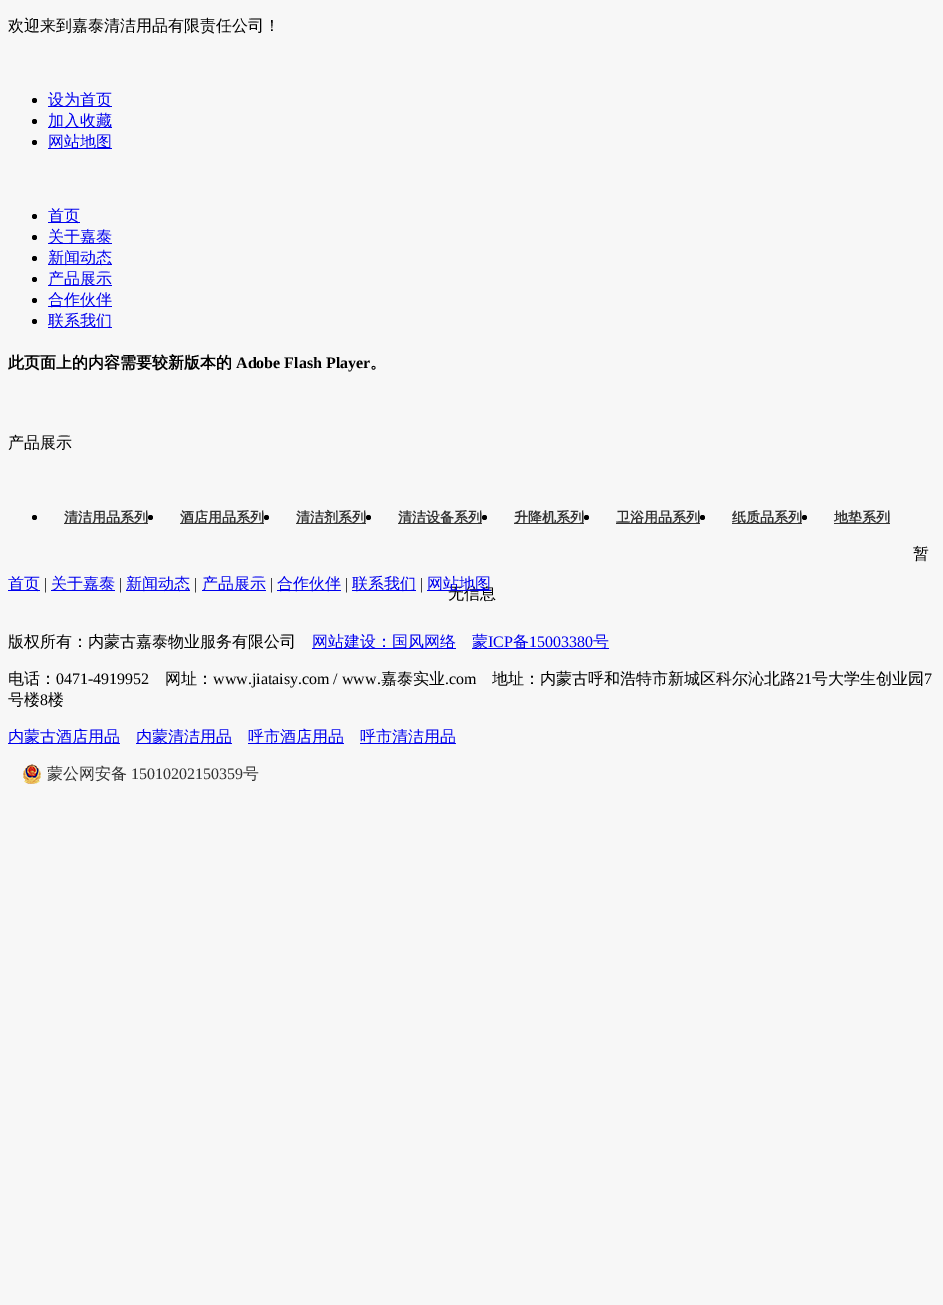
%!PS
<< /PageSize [943 1305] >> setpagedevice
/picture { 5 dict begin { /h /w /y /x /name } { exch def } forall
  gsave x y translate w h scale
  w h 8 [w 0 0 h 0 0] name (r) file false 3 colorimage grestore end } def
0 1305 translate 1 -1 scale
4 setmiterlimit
0.969 setgray
0 0 943 1305 rectfill
/WenQuanYiZenHei-Medium [16 0 0 -16 0 0] selectfont
0 setgray
8 31 moveto (欢迎来到嘉泰清洁用品有限责任公司！) show
newpath 34.5 100.5 2.5 0 360 arc closepath fill
0 0 0.933 setrgbcolor
48 106 64 1 rectfill
48 105 moveto (设为首页) show
0 setgray
newpath 34.5 121.5 2.5 0 360 arc closepath fill
0 0 0.933 setrgbcolor
48 127 64 1 rectfill
48 126 moveto (加入收藏) show
0 setgray
newpath 34.5 142.5 2.5 0 360 arc closepath fill
0 0 0.933 setrgbcolor
48 148 64 1 rectfill
48 147 moveto (网站地图) show
0 setgray
newpath 34.5 216.5 2.5 0 360 arc closepath fill
0 0 0.933 setrgbcolor
48 222 32 1 rectfill
48 221 moveto (首页) show
0 setgray
newpath 34.5 237.5 2.5 0 360 arc closepath fill
0 0 0.933 setrgbcolor
48 243 64 1 rectfill
48 242 moveto (关于嘉泰) show
0 setgray
newpath 34.5 258.5 2.5 0 360 arc closepath fill
0 0 0.933 setrgbcolor
48 264 64 1 rectfill
48 263 moveto (新闻动态) show
0 setgray
newpath 34.5 279.5 2.5 0 360 arc closepath fill
0 0 0.933 setrgbcolor
48 285 64 1 rectfill
48 284 moveto (产品展示) show
0 setgray
newpath 34.5 300.5 2.5 0 360 arc closepath fill
0 0 0.933 setrgbcolor
48 306 64 1 rectfill
48 305 moveto (合作伙伴) show
0 setgray
newpath 34.5 321.5 2.5 0 360 arc closepath fill
0 0 0.933 setrgbcolor
48 327 64 1 rectfill
48 326 moveto (联系我们) show
/WenQuanYiZenHei-Bold [16 0 0 -16 0 0] selectfont
0 setgray
8 368 moveto (此页面上的内容需要较新版本的) show
/LiberationSerif-Bold [16 0 0 -16 0 0] selectfont
236 368 moveto (Adobe Flash Player) show
/WenQuanYiZenHei-Bold [16 0 0 -16 0 0] selectfont
370 368 moveto (。) show
/WenQuanYiZenHei-Medium [16 0 0 -16 0 0] selectfont
8 448 moveto (产品展示) show
newpath 34.5 517.5 2.5 0 360 arc closepath fill
0.2 setgray
64 523 84 1 rectfill
/WenQuanYiZenHei-Bold [14 0 0 -14 0 0] selectfont
64 522 moveto (清洁用品系列) show
0 setgray
newpath 150.5 517.5 2.5 0 360 arc closepath fill
0.2 setgray
180 523 84 1 rectfill
180 522 moveto (酒店用品系列) show
0 setgray
newpath 266.5 517.5 2.5 0 360 arc closepath fill
0.2 setgray
296 523 70 1 rectfill
296 522 moveto (清洁剂系列) show
0 setgray
newpath 368.5 517.5 2.5 0 360 arc closepath fill
0.2 setgray
398 523 84 1 rectfill
398 522 moveto (清洁设备系列) show
0 setgray
newpath 484.5 517.5 2.5 0 360 arc closepath fill
0.2 setgray
514 523 70 1 rectfill
514 522 moveto (升降机系列) show
0 setgray
newpath 586.5 517.5 2.5 0 360 arc closepath fill
0.2 setgray
616 523 84 1 rectfill
616 522 moveto (卫浴用品系列) show
0 setgray
newpath 702.5 517.5 2.5 0 360 arc closepath fill
0.2 setgray
732 523 70 1 rectfill
732 522 moveto (纸质品系列) show
0 setgray
newpath 804.5 517.5 2.5 0 360 arc closepath fill
0.2 setgray
834 523 56 1 rectfill
834 522 moveto (地垫系列) show
/WenQuanYiZenHei-Medium [16 0 0 -16 0 0] selectfont
0 setgray
913 559 moveto (暂) show
448 599 moveto (无信息) show
0 0 0.933 setrgbcolor
8 590 32 1 rectfill
8 589 moveto (首页) show
/LiberationSerif-Regular [16 0 0 -16 0 0] selectfont
0 setgray
44 589 moveto (|) show
0 0 0.933 setrgbcolor
51 590 64 1 rectfill
/WenQuanYiZenHei-Medium [16 0 0 -16 0 0] selectfont
51 589 moveto (关于嘉泰) show
/LiberationSerif-Regular [16 0 0 -16 0 0] selectfont
0 setgray
119 589 moveto (|) show
0 0 0.933 setrgbcolor
126 590 64 1 rectfill
/WenQuanYiZenHei-Medium [16 0 0 -16 0 0] selectfont
126 589 moveto (新闻动态) show
/LiberationSerif-Regular [16 0 0 -16 0 0] selectfont
0 setgray
194 589 moveto (|) show
0 0 0.933 setrgbcolor
202 590 64 1 rectfill
/WenQuanYiZenHei-Medium [16 0 0 -16 0 0] selectfont
202 589 moveto (产品展示) show
/LiberationSerif-Regular [16 0 0 -16 0 0] selectfont
0 setgray
270 589 moveto (|) show
0 0 0.933 setrgbcolor
277 590 64 1 rectfill
/WenQuanYiZenHei-Medium [16 0 0 -16 0 0] selectfont
277 589 moveto (合作伙伴) show
/LiberationSerif-Regular [16 0 0 -16 0 0] selectfont
0 setgray
345 589 moveto (|) show
0 0 0.933 setrgbcolor
352 590 64 1 rectfill
/WenQuanYiZenHei-Medium [16 0 0 -16 0 0] selectfont
352 589 moveto (联系我们) show
/LiberationSerif-Regular [16 0 0 -16 0 0] selectfont
0 setgray
420 589 moveto (|) show
0 0 0.933 setrgbcolor
427 590 64 1 rectfill
/WenQuanYiZenHei-Medium [16 0 0 -16 0 0] selectfont
427 589 moveto (网站地图) show
0 setgray
8 647 moveto (版权所有：内蒙古嘉泰物业服务有限公司) show
0 0 0.933 setrgbcolor
312 648 144 1 rectfill
312 647 moveto (网站建设：国风网络) show
472 648 137 1 rectfill
472 647 moveto (蒙) show
/LiberationSerif-Regular [16 0 0 -16 0 0] selectfont
488 647 moveto (ICP) show
/WenQuanYiZenHei-Medium [16 0 0 -16 0 0] selectfont
513 647 moveto (备) show
/LiberationSerif-Regular [16 0 0 -16 0 0] selectfont
529 647 moveto (15003380) show
/WenQuanYiZenHei-Medium [16 0 0 -16 0 0] selectfont
593 647 moveto (号) show
0 setgray
8 684 moveto (电话：) show
/LiberationSerif-Regular [16 0 0 -16 0 0] selectfont
56 684 moveto (0471-4919952) show
/WenQuanYiZenHei-Medium [16 0 0 -16 0 0] selectfont
165 684 moveto (网址：) show
/LiberationSerif-Regular [16 0 0 -16 0 0] selectfont
213 684 moveto (www.jiataisy.com / www.) show
/WenQuanYiZenHei-Medium [16 0 0 -16 0 0] selectfont
381 684 moveto (嘉泰实业) show
/LiberationSerif-Regular [16 0 0 -16 0 0] selectfont
445 684 moveto (.com) show
/WenQuanYiZenHei-Medium [16 0 0 -16 0 0] selectfont
492 684 moveto (地址：内蒙古呼和浩特市新城区科尔沁北路) show
/LiberationSerif-Regular [16 0 0 -16 0 0] selectfont
796 684 moveto (21) show
/WenQuanYiZenHei-Medium [16 0 0 -16 0 0] selectfont
812 684 moveto (号大学生创业园) show
/LiberationSerif-Regular [16 0 0 -16 0 0] selectfont
924 684 moveto (7) show
/WenQuanYiZenHei-Medium [16 0 0 -16 0 0] selectfont
8 705 moveto (号楼) show
/LiberationSerif-Regular [16 0 0 -16 0 0] selectfont
40 705 moveto (8) show
/WenQuanYiZenHei-Medium [16 0 0 -16 0 0] selectfont
48 705 moveto (楼) show
0 0 0.933 setrgbcolor
8 743 112 1 rectfill
8 742 moveto (内蒙古酒店用品) show
136 743 96 1 rectfill
136 742 moveto (内蒙清洁用品) show
248 743 96 1 rectfill
248 742 moveto (呼市酒店用品) show
360 743 96 1 rectfill
360 742 moveto (呼市清洁用品) show
(img1.rgb) 23 764 18 20 picture
0.2 setgray
47 779 moveto (蒙公网安备) show
/LiberationSerif-Regular [16 0 0 -16 0 0] selectfont
131 779 moveto (15010202150359) show
/WenQuanYiZenHei-Medium [16 0 0 -16 0 0] selectfont
243 779 moveto (号) show
showpage
